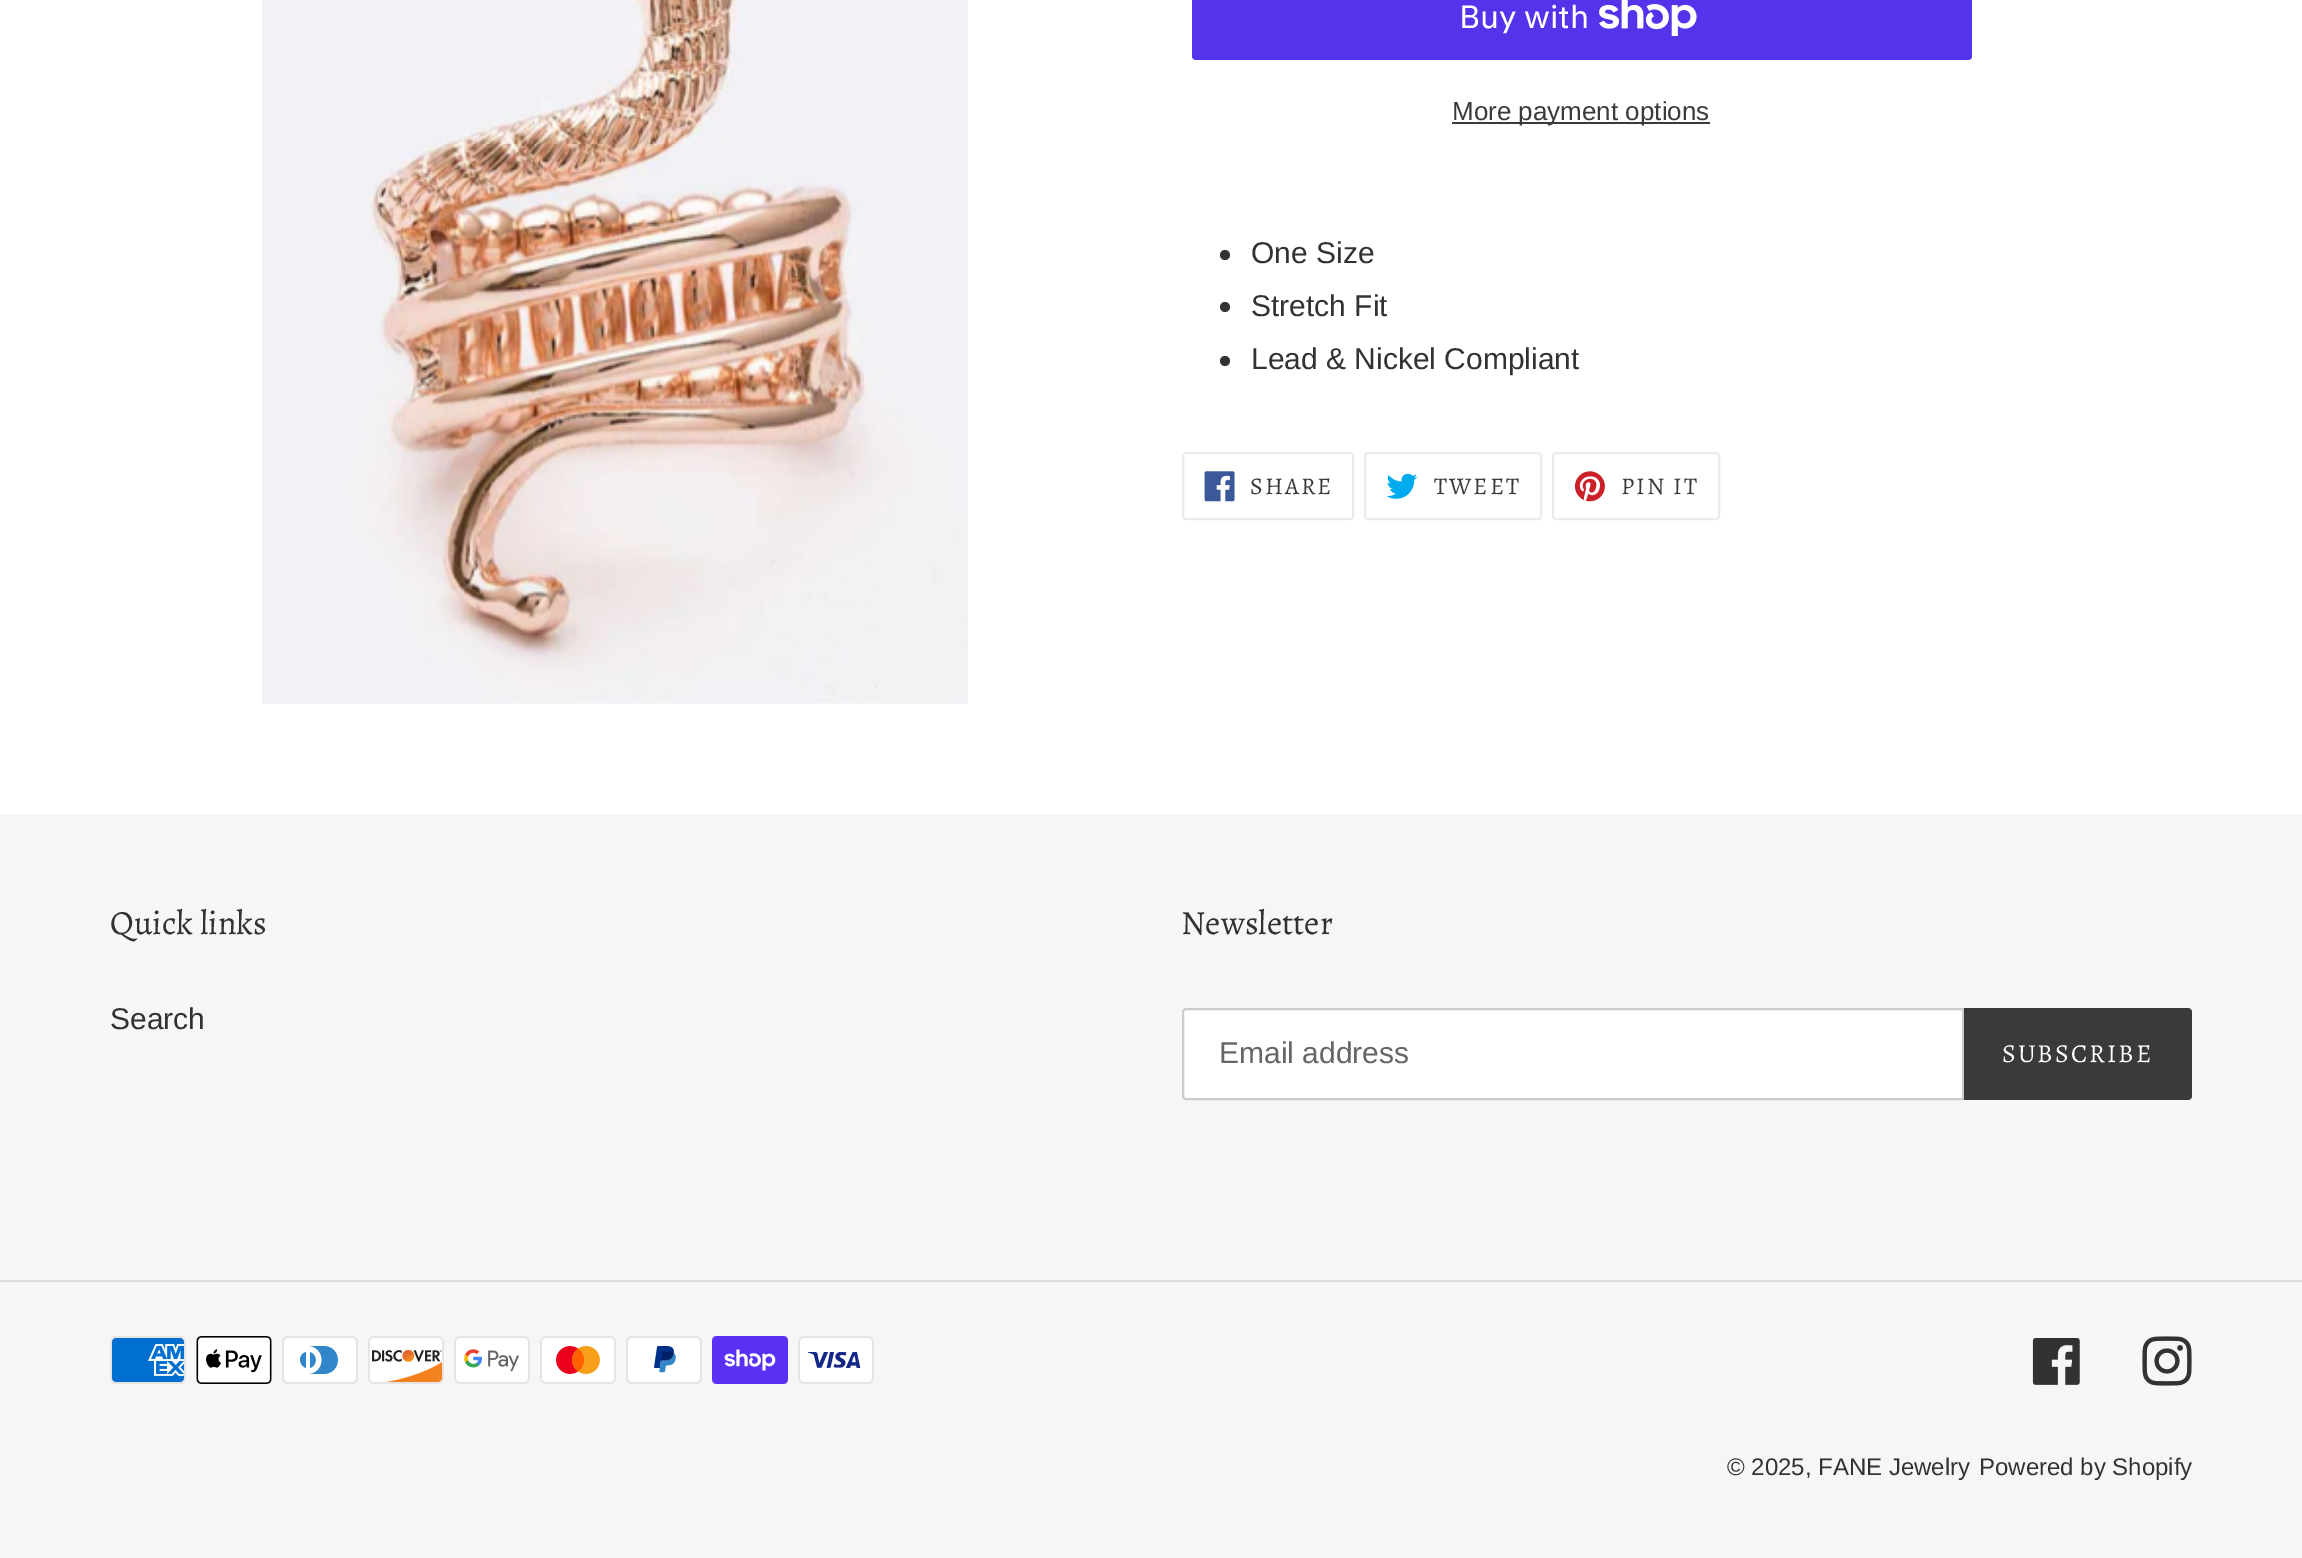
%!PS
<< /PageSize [2302 1558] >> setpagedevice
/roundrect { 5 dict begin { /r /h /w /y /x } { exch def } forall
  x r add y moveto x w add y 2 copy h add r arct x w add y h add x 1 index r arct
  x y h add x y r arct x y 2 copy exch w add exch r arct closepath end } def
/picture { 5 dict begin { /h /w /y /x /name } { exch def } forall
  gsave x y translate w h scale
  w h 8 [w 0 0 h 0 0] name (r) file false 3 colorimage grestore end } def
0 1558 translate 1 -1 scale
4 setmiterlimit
1 setgray
0 0 2302 1558 rectfill
(img1.rgb) 262 0 706 704 picture
0.329 0.2 0.922 setrgbcolor
1192 -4 780 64 4 roundrect fill
/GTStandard-Regular [32 0 0 -32 0 0] selectfont
1 setgray
1459 28 moveto (Buy with) show
(img2.rgb) 1599 0 98 36 picture
0.227 setgray
1452 122 258 2 rectfill
/LiberationSans-Regular [26 0 0 -26 0 0] selectfont
1452 120 moveto (More payment options) show
0.2 0.196 0.196 setrgbcolor
newpath 1225 255 5 0 360 arc closepath fill
/LiberationSans-Regular [30 0 0 -30 0 0] selectfont
1251 263 moveto (One Size) show
newpath 1225 307 5 0 360 arc closepath fill
1251 316 moveto (Stretch Fit) show
newpath 1225 361 5 0 360 arc closepath fill
1251 369 moveto (Lead & Nickel Compliant) show
0.922 setgray
2 setlinewidth
1183 453 170 66 3 roundrect stroke
(img3.rgb) 1204 471 31 31 picture
/Alegreya-Regular [24 0 0 -24 0 0] selectfont
0.227 setgray
1250 494 moveto 2 0 (SHARE) ashow
0.922 setgray
1365 453 176 66 3 roundrect stroke
(img4.rgb) 1386 473 32 26 picture
0.227 setgray
1434 494 moveto 2 0 (TWEET) ashow
0.922 setgray
1553 453 166 66 3 roundrect stroke
(img5.rgb) 1574 471 31 31 picture
0.227 setgray
1621 494 moveto 2 0 (PIN IT) ashow
0.965 setgray
0 814 2302 744 rectfill
/Alegreya-Regular [34 0 0 -34 0 0] selectfont
0.2 0.196 0.196 setrgbcolor
110 934 moveto (Quick links) show
/LiberationSans-Regular [30 0 0 -30 0 0] selectfont
110 1029 moveto (Search) show
/Alegreya-Regular [34 0 0 -34 0 0] selectfont
1181 934 moveto (Newsletter) show
1 setgray
newpath 1186 1009 moveto 1963 1009 lineto 1963 1099 lineto 1186 1099 lineto 1184.5 1099 1183 1097.5 1183 1096 curveto 1183 1012 lineto 1183 1010.5 1184.5 1009 1186 1009 curveto closepath gsave fill grestore
0.8 setgray
stroke
/LiberationSans-Regular [30 0 0 -30 0 0] selectfont
0.4 setgray
1219 1063 moveto (Email address) show
0.227 setgray
newpath 1964 1008 moveto 2188 1008 lineto 2190 1008 2192 1010 2192 1012 curveto 2192 1096 lineto 2192 1098 2190 1100 2188 1100 curveto 1964 1100 lineto closepath fill
/Alegreya-Regular [26 0 0 -26 0 0] selectfont
1 setgray
2002 1062 moveto 2 0 (SUBSCRIBE) ashow
0.867 setgray
0 1280 2302 2 rectfill
(img6.rgb) 110 1336 76 48 picture
(img7.rgb) 196 1336 76 48 picture
(img8.rgb) 282 1336 76 48 picture
(img9.rgb) 368 1336 76 48 picture
(img10.rgb) 454 1336 76 48 picture
(img11.rgb) 540 1336 76 48 picture
(img12.rgb) 626 1336 76 48 picture
(img13.rgb) 712 1336 76 48 picture
(img14.rgb) 798 1336 76 48 picture
(img15.rgb) 2032 1338 48 47 picture
(img16.rgb) 2142 1336 50 50 picture
/LiberationSans-Regular [24 0 0 -24 0 0] selectfont
0.2 0.196 0.196 setrgbcolor
1727 1475 moveto (© 2025, FANE Jewelry) show
1979 1475 moveto (Powered by Shopify) show
showpage
